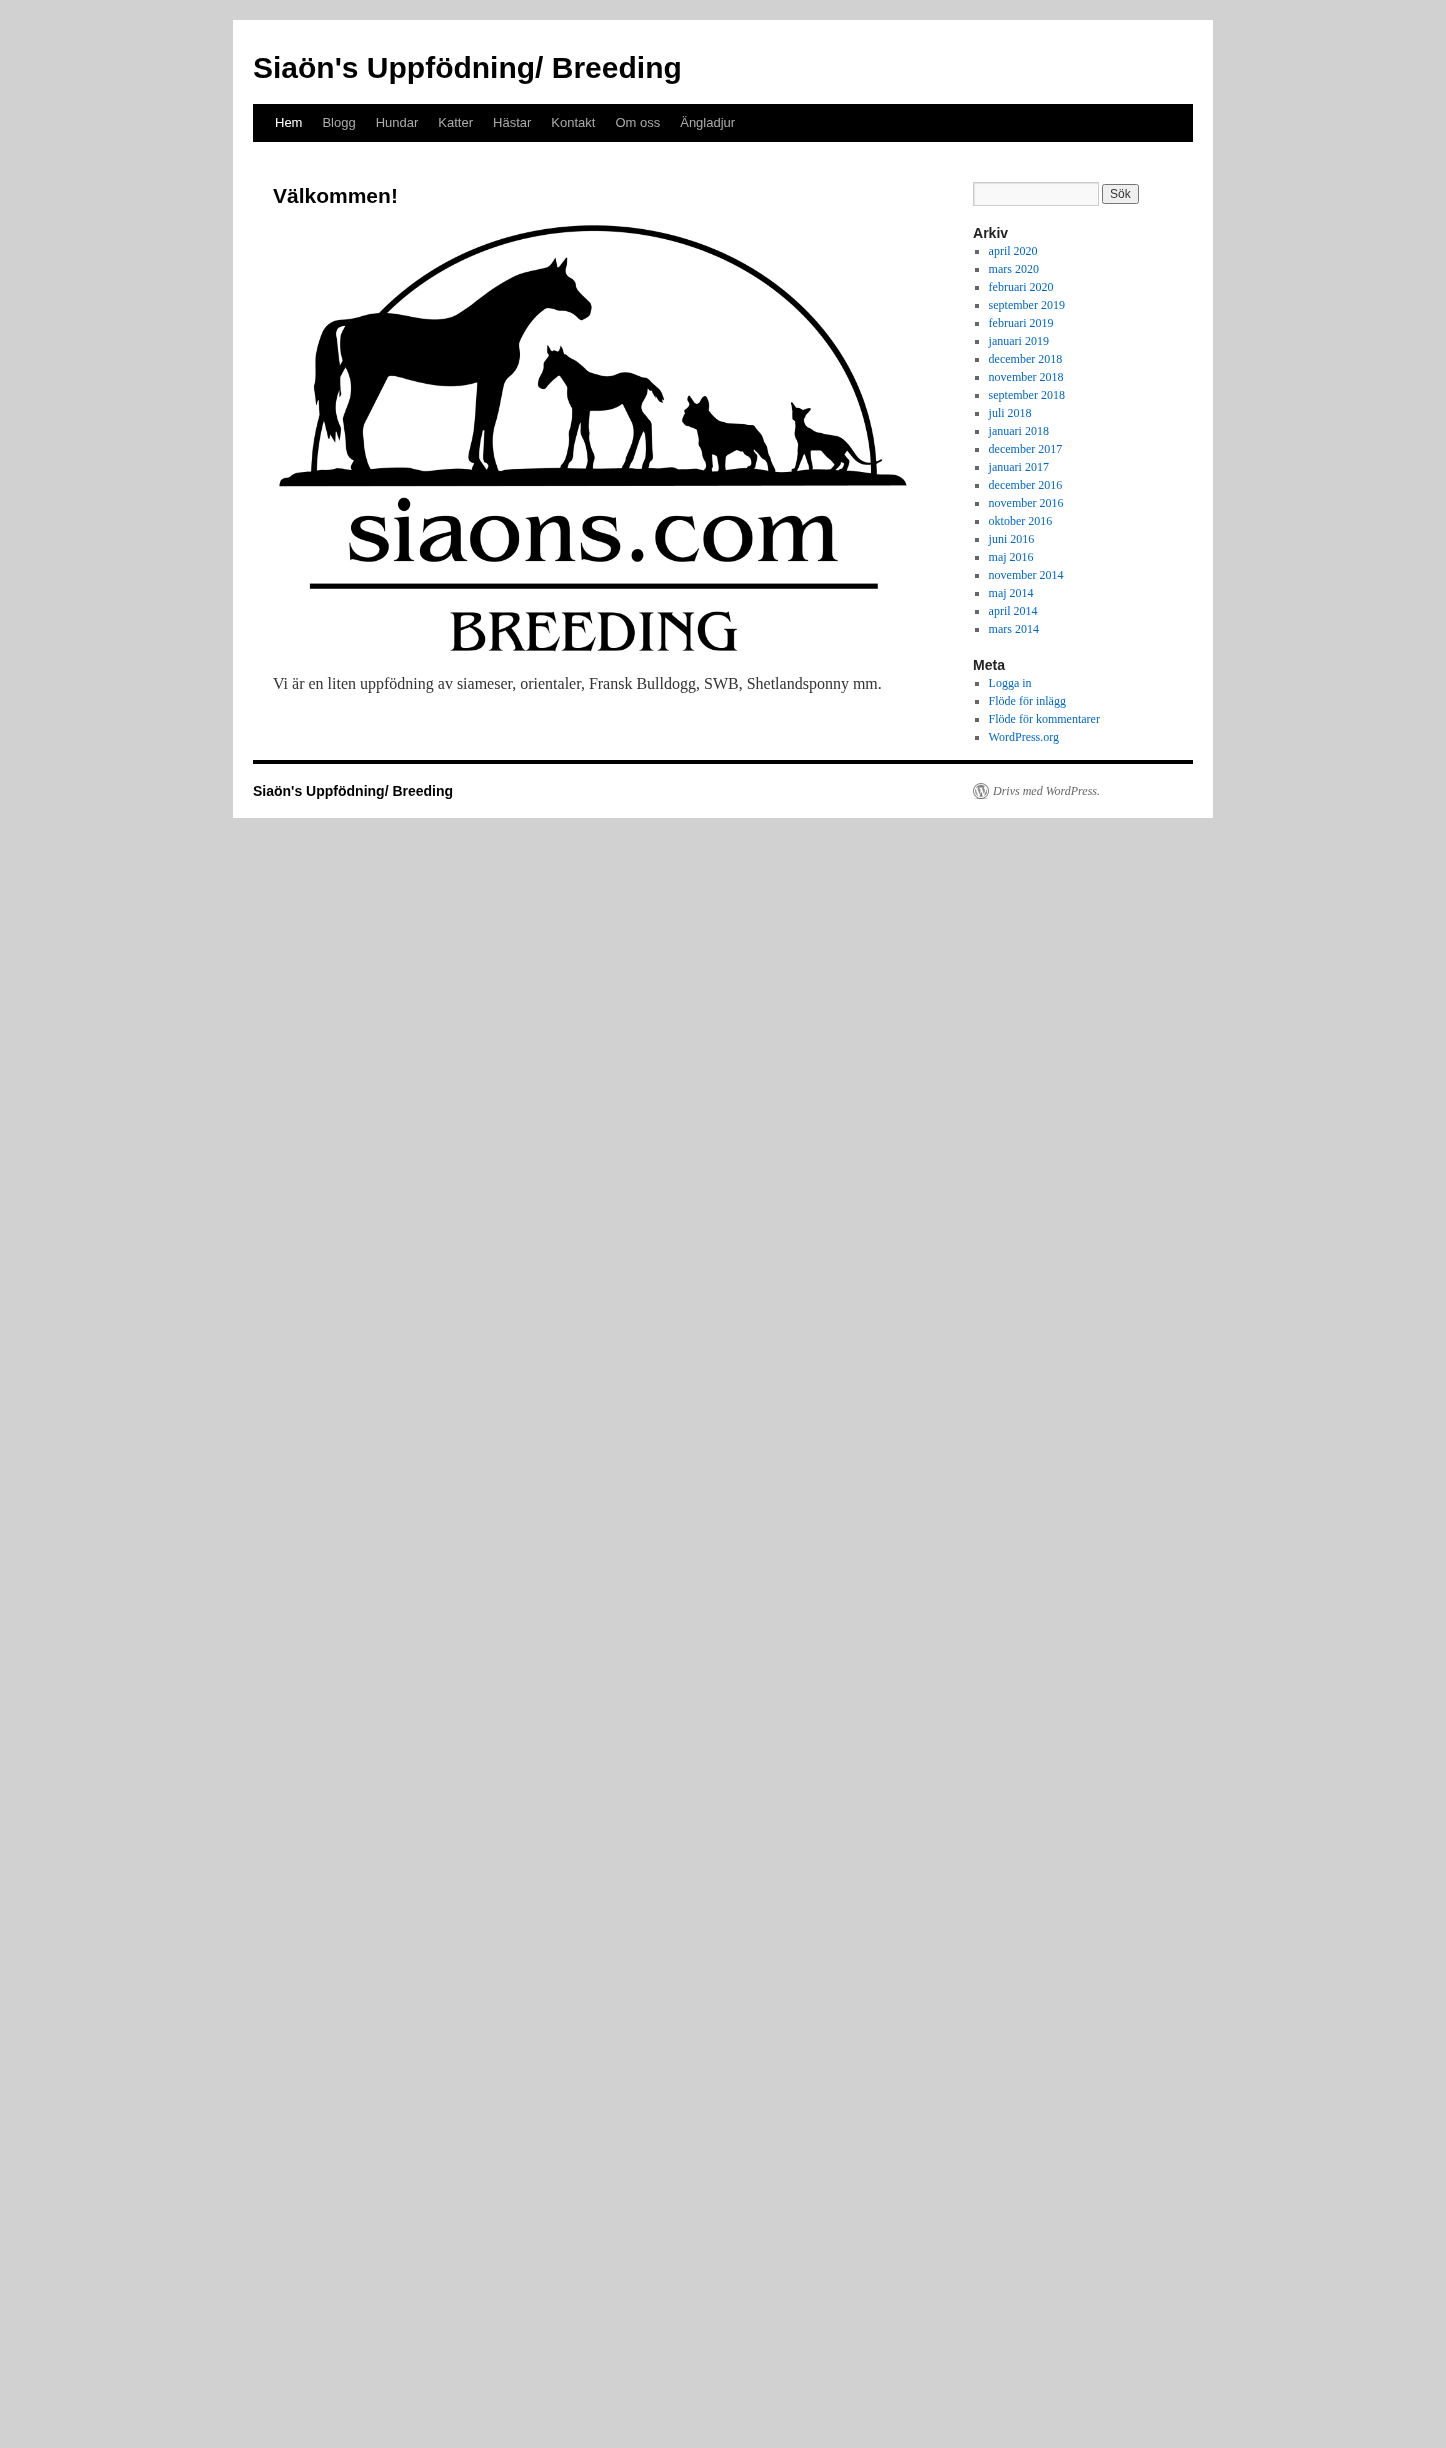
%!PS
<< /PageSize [1446 2448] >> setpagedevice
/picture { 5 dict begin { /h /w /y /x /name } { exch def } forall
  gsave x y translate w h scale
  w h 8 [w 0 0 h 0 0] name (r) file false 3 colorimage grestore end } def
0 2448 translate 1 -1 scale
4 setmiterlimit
1 setgray
0 0 1446 2448 rectfill
(img1.rgb) 0 0 1446 2448 picture
showpage
